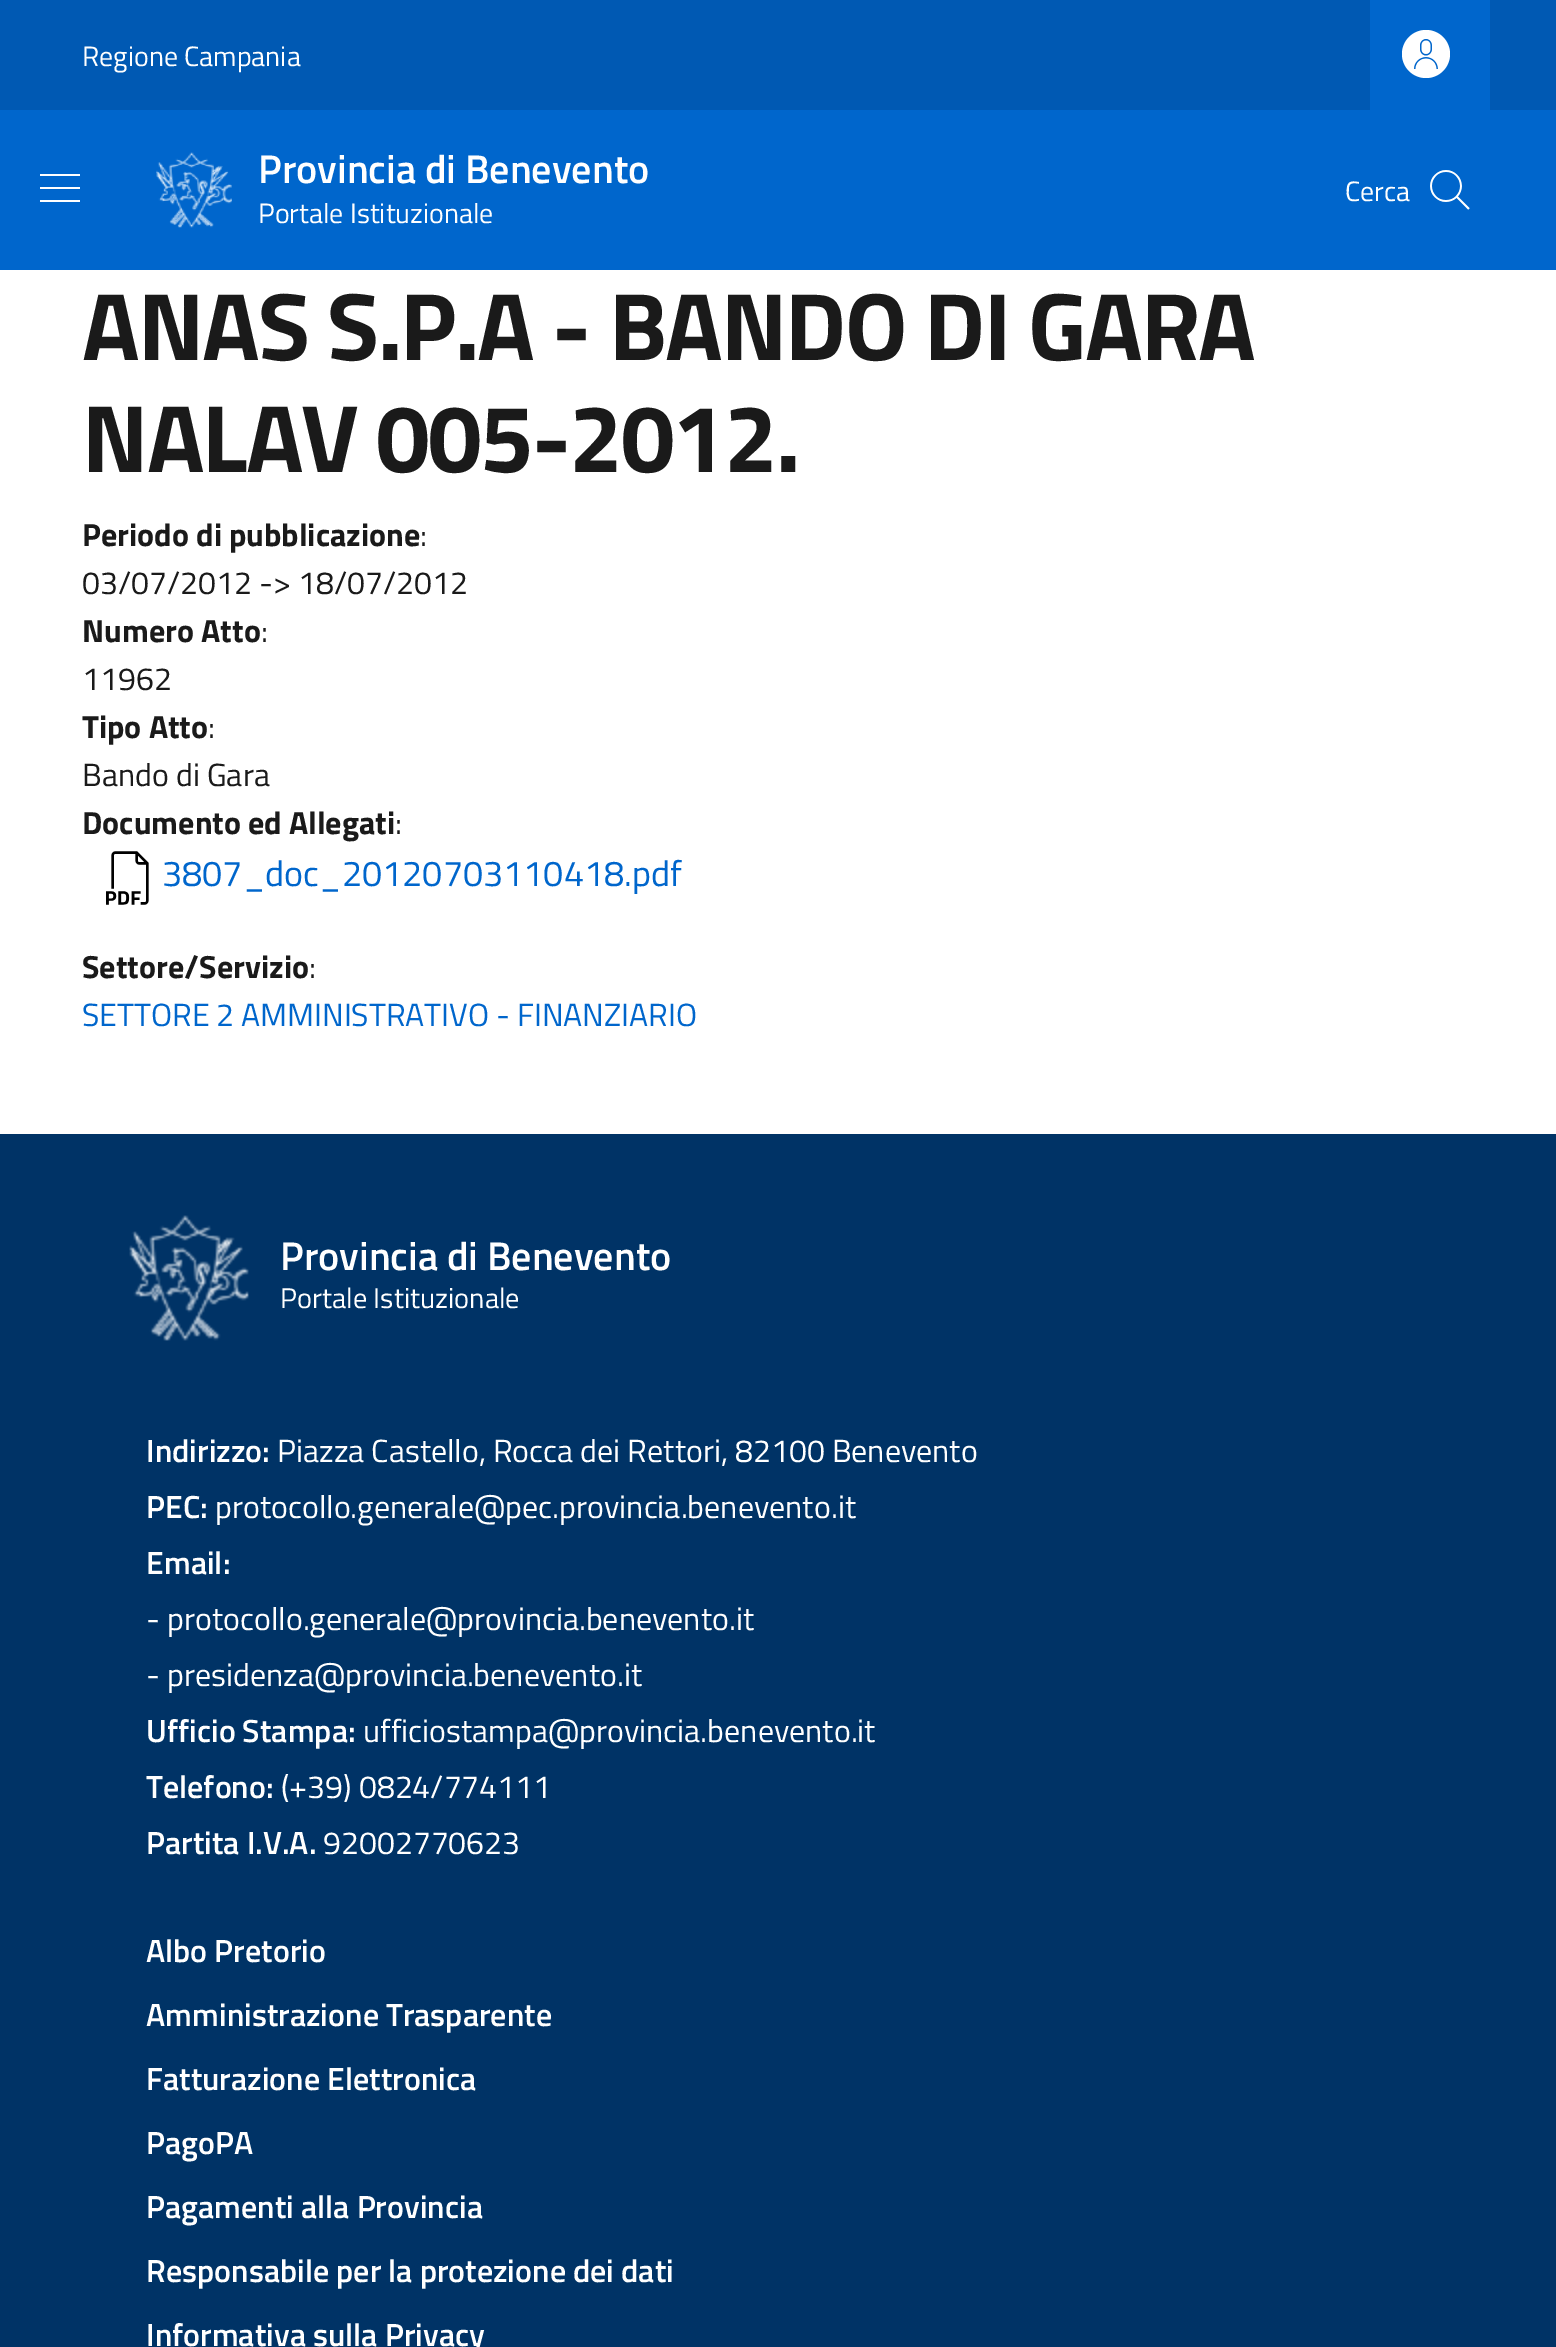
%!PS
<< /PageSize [1556 2347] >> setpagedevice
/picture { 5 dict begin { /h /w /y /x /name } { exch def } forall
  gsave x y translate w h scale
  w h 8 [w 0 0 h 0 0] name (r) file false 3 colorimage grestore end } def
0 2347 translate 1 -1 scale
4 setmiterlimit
1 setgray
0 0 1556 2347 rectfill
0 0.349 0.702 setrgbcolor
0 0 1556 110 rectfill
/TitilliumWeb-Regular [28 0 0 -28 0 0] selectfont
1 setgray
82 66 moveto (Regione Campania) show
0 0.4 0.8 setrgbcolor
1370 0 120 110 rectfill
1 setgray
newpath 1426 54 24 0 360 arc closepath fill
(img1.rgb) 1414 39 24 30 picture
0 0.4 0.8 setrgbcolor
0 110 1556 160 rectfill
(img2.rgb) 40 174 40 28 picture
(img3.rgb) 156 152 76 76 picture
/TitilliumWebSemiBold-SemiBold [40 0 0 -40 0 0] selectfont
1 setgray
258 183 moveto (Provincia di Benevento) show
/TitilliumWeb-Regular [28 0 0 -28 0 0] selectfont
258 223 moveto (Portale Istituzionale) show
1345 201 moveto (Cerca) show
(img4.rgb) 1430 170 40 40 picture
/TitilliumWeb-Bold [96 0 0 -96 0 0] selectfont
0.102 setgray
82 360 moveto -2 0 (ANAS S.P.A - BANDO DI GARA) ashow
82 472 moveto -2 0 (NALAV 005-2012.) ashow
/TitilliumWeb-Bold [32 0 0 -32 0 0] selectfont
82 546 moveto (Periodo di pubblicazione) show
/TitilliumWeb-Regular [32 0 0 -32 0 0] selectfont
420 546 moveto (:) show
82 594 moveto (03/07/2012 -> 18/07/2012) show
/TitilliumWeb-Bold [32 0 0 -32 0 0] selectfont
82 642 moveto (Numero Atto) show
/TitilliumWeb-Regular [32 0 0 -32 0 0] selectfont
261 642 moveto (:) show
82 690 moveto (11962) show
/TitilliumWeb-Bold [32 0 0 -32 0 0] selectfont
82 738 moveto (Tipo Atto) show
/TitilliumWeb-Regular [32 0 0 -32 0 0] selectfont
208 738 moveto (:) show
82 786 moveto (Bando di Gara) show
/TitilliumWeb-Bold [32 0 0 -32 0 0] selectfont
82 834 moveto (Documento ed Allegati) show
/TitilliumWeb-Regular [32 0 0 -32 0 0] selectfont
395 834 moveto (:) show
(img5.rgb) 106 851 43 54 picture
/TitilliumWeb-Regular [36 0 0 -36 0 0] selectfont
0 0.4 0.8 setrgbcolor
162 886 moveto (3807_doc_20120703110418.pdf) show
/TitilliumWeb-Bold [32 0 0 -32 0 0] selectfont
0.102 setgray
82 978 moveto (Settore/Servizio) show
/TitilliumWeb-Regular [32 0 0 -32 0 0] selectfont
309 978 moveto (:) show
0 0.4 0.8 setrgbcolor
82 1026 moveto (SETTORE 2 AMMINISTRATIVO - FINANZIARIO) show
0 0.2 0.4 setrgbcolor
0 1134 1556 1213 rectfill
(img6.rgb) 129 1215 120 126 picture
/TitilliumWebSemiBold-SemiBold [40 0 0 -40 0 0] selectfont
1 setgray
280 1270 moveto (Provincia di Benevento) show
/TitilliumWeb-Regular [28.5 0 0 -28.5 0 0] selectfont
280 1308 moveto (Portale Istituzionale) show
/TitilliumWebSemiBold-SemiBold [32 0 0 -32 0 0] selectfont
146 1462 moveto (Indirizzo:) show
/TitilliumWeb-Regular [32 0 0 -32 0 0] selectfont
277 1462 moveto (Piazza Castello, Rocca dei Rettori, 82100 Benevento) show
/TitilliumWebSemiBold-SemiBold [32 0 0 -32 0 0] selectfont
146 1518 moveto (PEC:) show
/TitilliumWeb-Regular [32 0 0 -32 0 0] selectfont
215 1518 moveto (protocollo.generale@pec.provincia.benevento.it) show
/TitilliumWebSemiBold-SemiBold [32 0 0 -32 0 0] selectfont
146 1574 moveto (Email:) show
/TitilliumWeb-Regular [32 0 0 -32 0 0] selectfont
146 1630 moveto (- protocollo.generale@provincia.benevento.it) show
146 1686 moveto (- presidenza@provincia.benevento.it) show
/TitilliumWebSemiBold-SemiBold [32 0 0 -32 0 0] selectfont
146 1742 moveto (Ufficio Stampa:) show
/TitilliumWeb-Regular [32 0 0 -32 0 0] selectfont
363 1742 moveto (ufficiostampa@provincia.benevento.it) show
/TitilliumWebSemiBold-SemiBold [32 0 0 -32 0 0] selectfont
146 1798 moveto (Telefono:) show
/TitilliumWeb-Regular [32 0 0 -32 0 0] selectfont
281 1798 moveto (\(+39\) 0824/774111) show
/TitilliumWebSemiBold-SemiBold [32 0 0 -32 0 0] selectfont
146 1854 moveto (Partita I.V.A.) show
/TitilliumWeb-Regular [32 0 0 -32 0 0] selectfont
323 1854 moveto (92002770623) show
/TitilliumWebSemiBold-SemiBold [32 0 0 -32 0 0] selectfont
146 1962 moveto (Albo Pretorio) show
146 2026 moveto (Amministrazione Trasparente) show
146 2090 moveto (Fatturazione Elettronica) show
146 2154 moveto (PagoPA) show
146 2218 moveto (Pagamenti alla Provincia) show
146 2282 moveto (Responsabile per la protezione dei dati) show
146 2346 moveto (Informativa sulla Privacy) show
showpage
